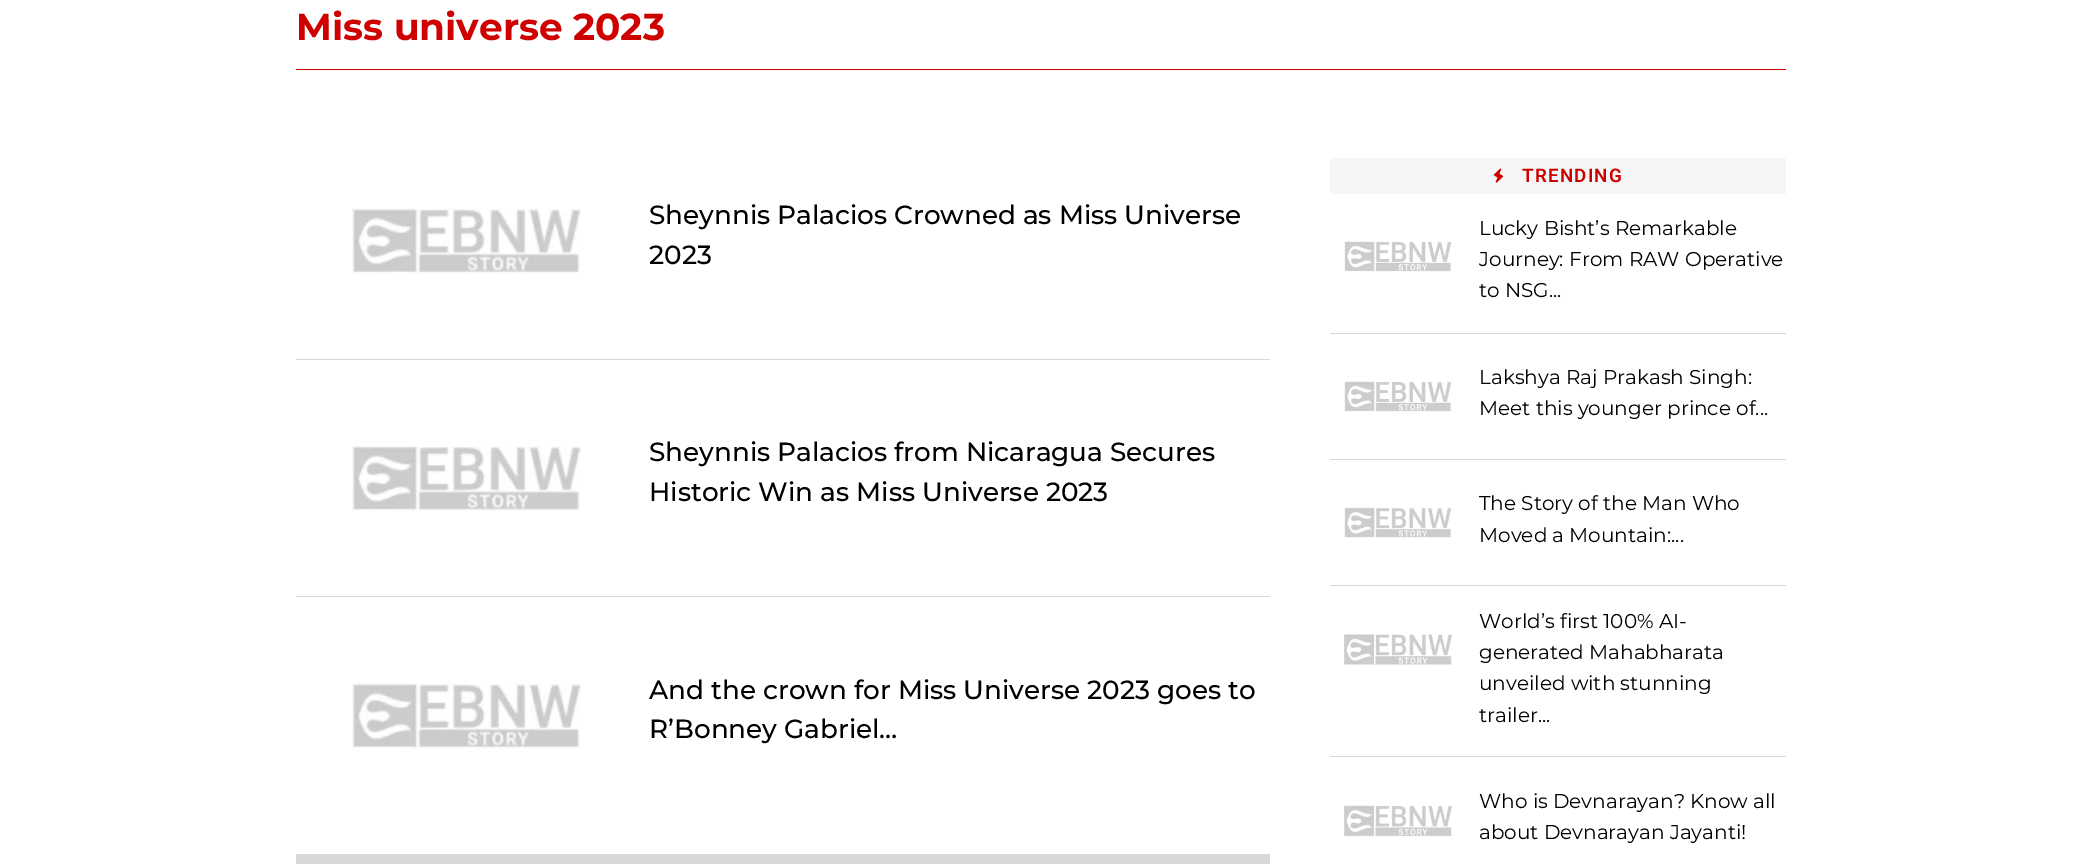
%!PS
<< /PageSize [2082 864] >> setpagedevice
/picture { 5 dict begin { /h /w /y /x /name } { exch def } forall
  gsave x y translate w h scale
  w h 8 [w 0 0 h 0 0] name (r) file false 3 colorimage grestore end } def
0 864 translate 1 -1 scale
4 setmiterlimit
1 setgray
0 0 2082 864 rectfill
/Montserrat-Bold [37.5 0 0 -37.5 0 0] selectfont
0.808 0 0 setrgbcolor
296 40 moveto (Miss universe 2023) show
296 69 1490 1 rectfill
(img1.rgb) 352 208 229 66 picture
/Montserrat-Medium [26.25 0 0 -26.25 0 0] selectfont
0 setgray
649 224 moveto (Sheynnis Palacios Crowned as Miss Universe) show
649 264 moveto (2023) show
0.847 setgray
296 359 974 1 rectfill
(img2.rgb) 352 446 229 65 picture
0 setgray
649 461 moveto (Sheynnis Palacios from Nicaragua Secures) show
649 501 moveto (Historic Win as Miss Universe 2023) show
0.847 setgray
296 596 974 1 rectfill
(img1.rgb) 352 683 229 66 picture
0 setgray
649 699 moveto (And the crown for Miss Universe 2023 goes to) show
649 738 moveto (R’Bonney Gabriel…) show
0.847 setgray
296 854 974 10 rectfill
0.965 setgray
1330 158 456 36 rectfill
(img3.rgb) 1493 168 11 15 picture
/Roboto-SemiBold [18.75 0 0 -18.75 0 0] selectfont
0.808 0 0 setrgbcolor
1522 182 moveto 1.25 0 (TRENDING) ashow
(img4.rgb) 1344 241 108 31 picture
/Montserrat-Regular [20 0 0 -20 0 0] selectfont
0 setgray
1479 235 moveto (Lucky Bisht’s Remarkable) show
1479 266 moveto (Journey: From RAW Operative) show
1479 297 moveto (to NSG...) show
0.847 setgray
1330 333 456 1 rectfill
(img4.rgb) 1344 381 108 31 picture
0 setgray
1479 384 moveto (Lakshya Raj Prakash Singh:) show
1479 415 moveto (Meet this younger prince of...) show
0.847 setgray
1330 459 456 1 rectfill
(img5.rgb) 1344 507 108 31 picture
0 setgray
1479 510 moveto (The Story of the Man Who) show
1479 542 moveto (Moved a Mountain:...) show
0.847 setgray
1330 585 456 1 rectfill
(img6.rgb) 1344 634 109 32 picture
0 setgray
1479 628 moveto (World’s first 100% AI-) show
1479 659 moveto (generated Mahabharata) show
1479 690 moveto (unveiled with stunning) show
1479 722 moveto (trailer...) show
0.847 setgray
1330 756 456 1 rectfill
(img7.rgb) 1344 805 109 32 picture
0 setgray
1479 808 moveto (Who is Devnarayan? Know all) show
1479 839 moveto (about Devnarayan Jayanti!) show
showpage
